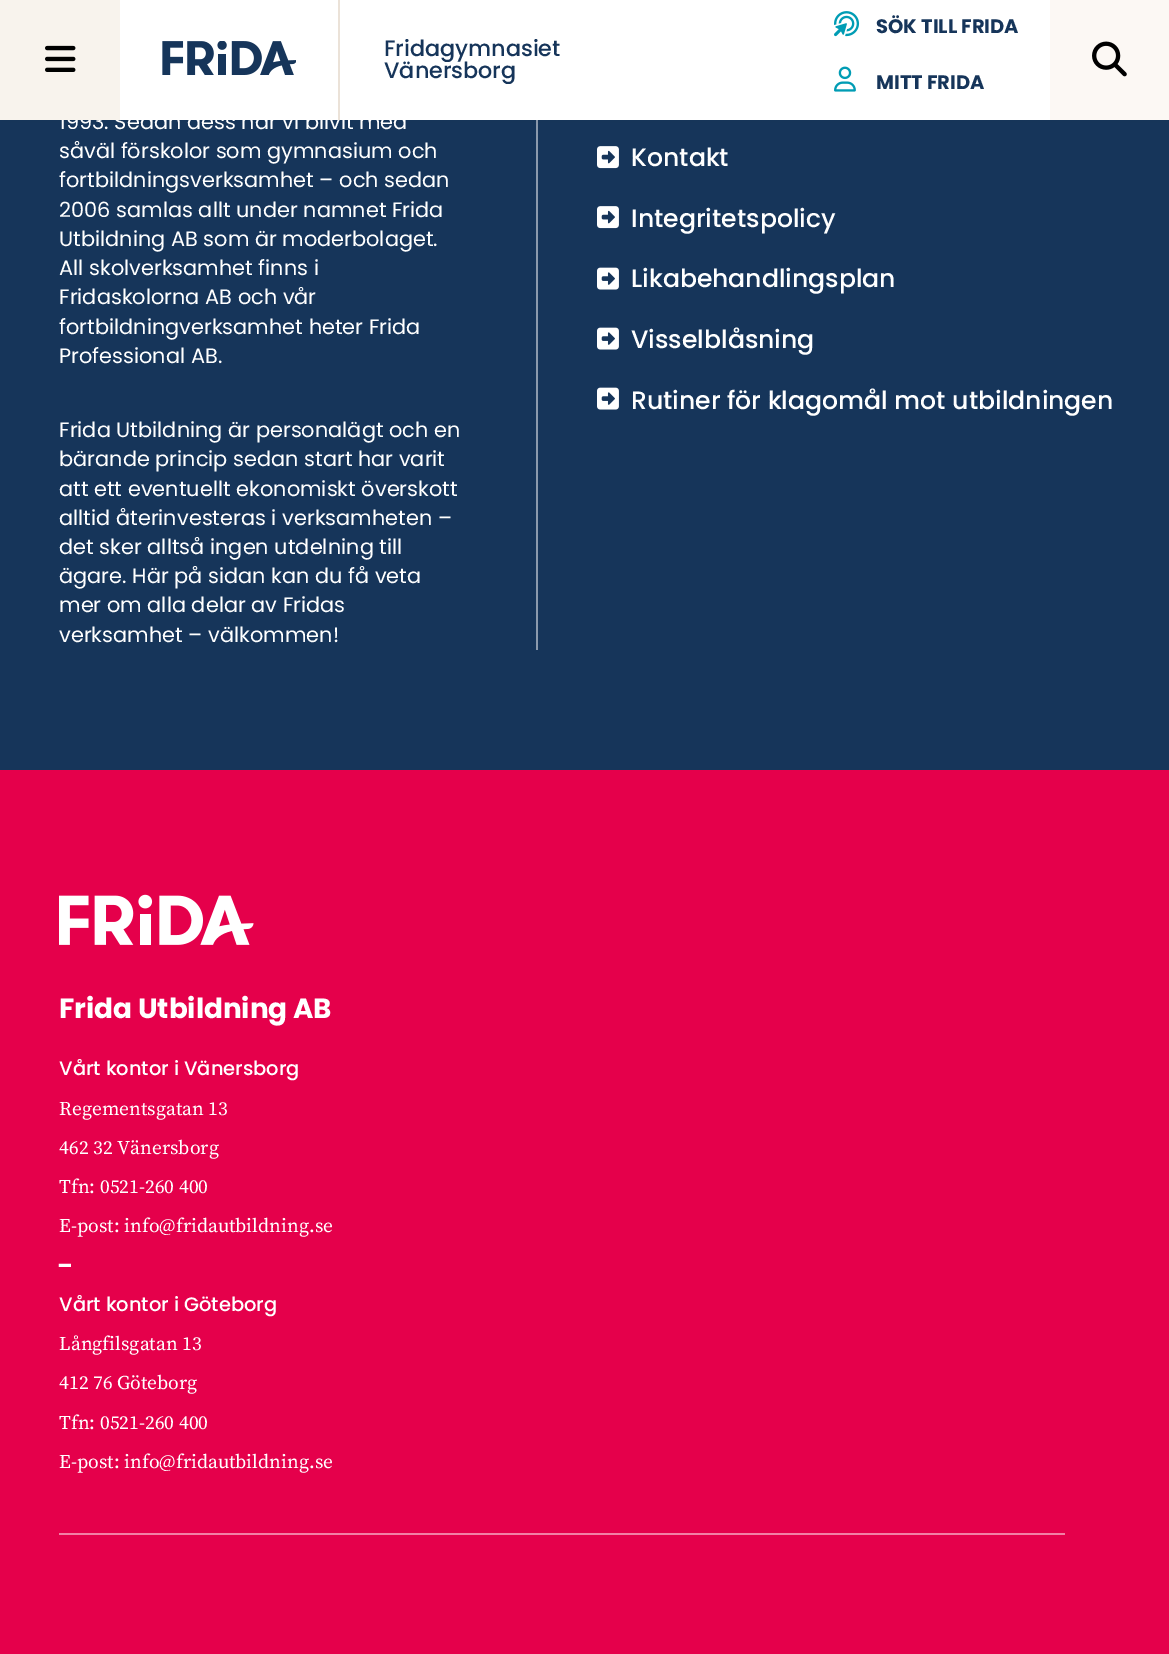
%!PS
<< /PageSize [1169 1654] /PageUsesTransparency true >> setpagedevice
/alpha { dup .setfillconstantalpha .setstrokeconstantalpha } def
/roundrect { 5 dict begin { /r /h /w /y /x } { exch def } forall
  x r add y moveto x w add y 2 copy h add r arct x w add y h add x 1 index r arct
  x y h add x y r arct x y 2 copy exch w add exch r arct closepath end } def
/shadow { 12 dict begin { /a /b /q /h /w /y /x } { exch def } forall gsave /was 0 def
  9 -2 -9 { dup b mul 4 div /e exch def 1 sub .425 mul 2.718 exch exp 1 add a .99 .min exch div /now exch def
    1 1 now sub 1 was sub div sub alpha /was now def
    w h .min e 2 mul add 0 gt { x e sub y e sub w e 2 mul add h e 2 mul add
      q e add b .6 mul add w h .min 2 div e add .min 0 .max roundrect fill } if } for grestore end } def
/picture { 5 dict begin { /h /w /y /x /name } { exch def } forall
  gsave x y translate w h scale
  w h 8 [w 0 0 h 0 0] name (r) file false 3 colorimage grestore end } def
0 .pushpdf14devicefilter
0 1654 translate 1 -1 scale
4 setmiterlimit
0.898 0 0.294 setrgbcolor
0 0 1169 1654 rectfill
0.086 0.208 0.353 setrgbcolor
0 120 1169 650 rectfill
0.545 0.604 0.678 setrgbcolor
536 120 2 530 rectfill
(img6.rgb) 597 146 22 23 picture
0.188 setgray
0 0 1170 120 0 15 0.08 shadow
1 setgray
120 0 930 120 rectfill
/Poppins-Regular [20.9 0 0 -20.9 0 0] selectfont
59 129 moveto (1993. Sedan dess har vi blivit med) show
0.973 0.953 0.929 setrgbcolor
0 0 120 120 rectfill
(img1.rgb) 45 45 31 27 picture
(img2.rgb) 162 41 134 34 picture
0.922 0.886 0.847 setrgbcolor
338 0 2 120 rectfill
/Poppins-Medium [22.25 0 0 -22.25 0 0] selectfont
0.086 0.208 0.353 setrgbcolor
384 56 moveto (Fridagymnasiet) show
384 78 moveto (Vänersborg) show
(img3.rgb) 834 11 26 26 picture
/Poppins-Bold [19.5 0 0 -19.5 0 0] selectfont
876 33 moveto (SÖK TILL FRIDA) show
(img4.rgb) 834 66 22 26 picture
876 89 moveto (MITT FRIDA) show
0.988 0.973 0.957 setrgbcolor
1050 0 119 120 rectfill
(img5.rgb) 1092 41 35 36 picture
/Poppins-Regular [20.9 0 0 -20.9 0 0] selectfont
1 setgray
59 158 moveto (såväl förskolor som gymnasium och) show
59 187 moveto (fortbildningsverksamhet – och sedan) show
59 217 moveto (2006 samlas allt under namnet Frida) show
59 246 moveto (Utbildning AB som är moderbolaget.) show
59 275 moveto (All skolverksamhet finns i) show
59 304 moveto (Fridaskolorna AB och vår) show
59 334 moveto (fortbildningverksamhet heter Frida) show
59 363 moveto (Professional AB.) show
59 437 moveto (Frida Utbildning är personalägt och en) show
59 466 moveto (bärande princip sedan start har varit) show
59 496 moveto (att ett eventuellt ekonomiskt överskott) show
59 525 moveto (alltid återinvesteras i verksamheten –) show
59 554 moveto (det sker alltså ingen utdelning till) show
59 583 moveto (ägare. Här på sidan kan du få veta) show
59 612 moveto (mer om alla delar av Fridas) show
59 642 moveto (verksamhet – välkommen!) show
/Poppins-Medium [25.1 0 0 -25.1 0 0] selectfont
631 166 moveto (Kontakt) show
(img6.rgb) 597 206 22 23 picture
631 227 moveto (Integritetspolicy) show
(img7.rgb) 597 267 22 23 picture
631 287 moveto (Likabehandlingsplan) show
(img7.rgb) 597 327 22 23 picture
631 348 moveto (Visselblåsning) show
(img7.rgb) 597 387 22 23 picture
631 409 moveto (Rutiner för klagomål mot utbildningen) show
(img8.rgb) 59 894 195 51 picture
0.949 0.502 0.647 setrgbcolor
59 1533 1006 2 rectfill
/Poppins-Bold [27.75 0 0 -27.75 0 0] selectfont
1 setgray
59 1018 moveto (Frida Utbildning AB) show
/Poppins-Medium [19.5 0 0 -19.5 0 0] selectfont
59 1075 moveto (Vårt kontor i Vänersborg) show
/SourceSerifPro-Regular [19.5 0 0 -19.5 0 0] selectfont
59 1115 moveto (Regementsgatan 13) show
59 1154 moveto (462 32 Vänersborg) show
59 1193 moveto (Tfn: 0521-260 400) show
59 1232 moveto (E-post: info@fridautbildning.se) show
/DejaVuSans-Regular [19.5 0 0 -19.5 0 0] selectfont
59 1272 moveto (━) show
/Poppins-Medium [19.5 0 0 -19.5 0 0] selectfont
59 1311 moveto (Vårt kontor i Göteborg) show
/SourceSerifPro-Regular [19.5 0 0 -19.5 0 0] selectfont
59 1350 moveto (Långfilsgatan 13) show
59 1389 moveto (412 76 Göteborg) show
59 1429 moveto (Tfn: 0521-260 400) show
59 1468 moveto (E-post: info@fridautbildning.se) show
.poppdf14devicefilter showpage
